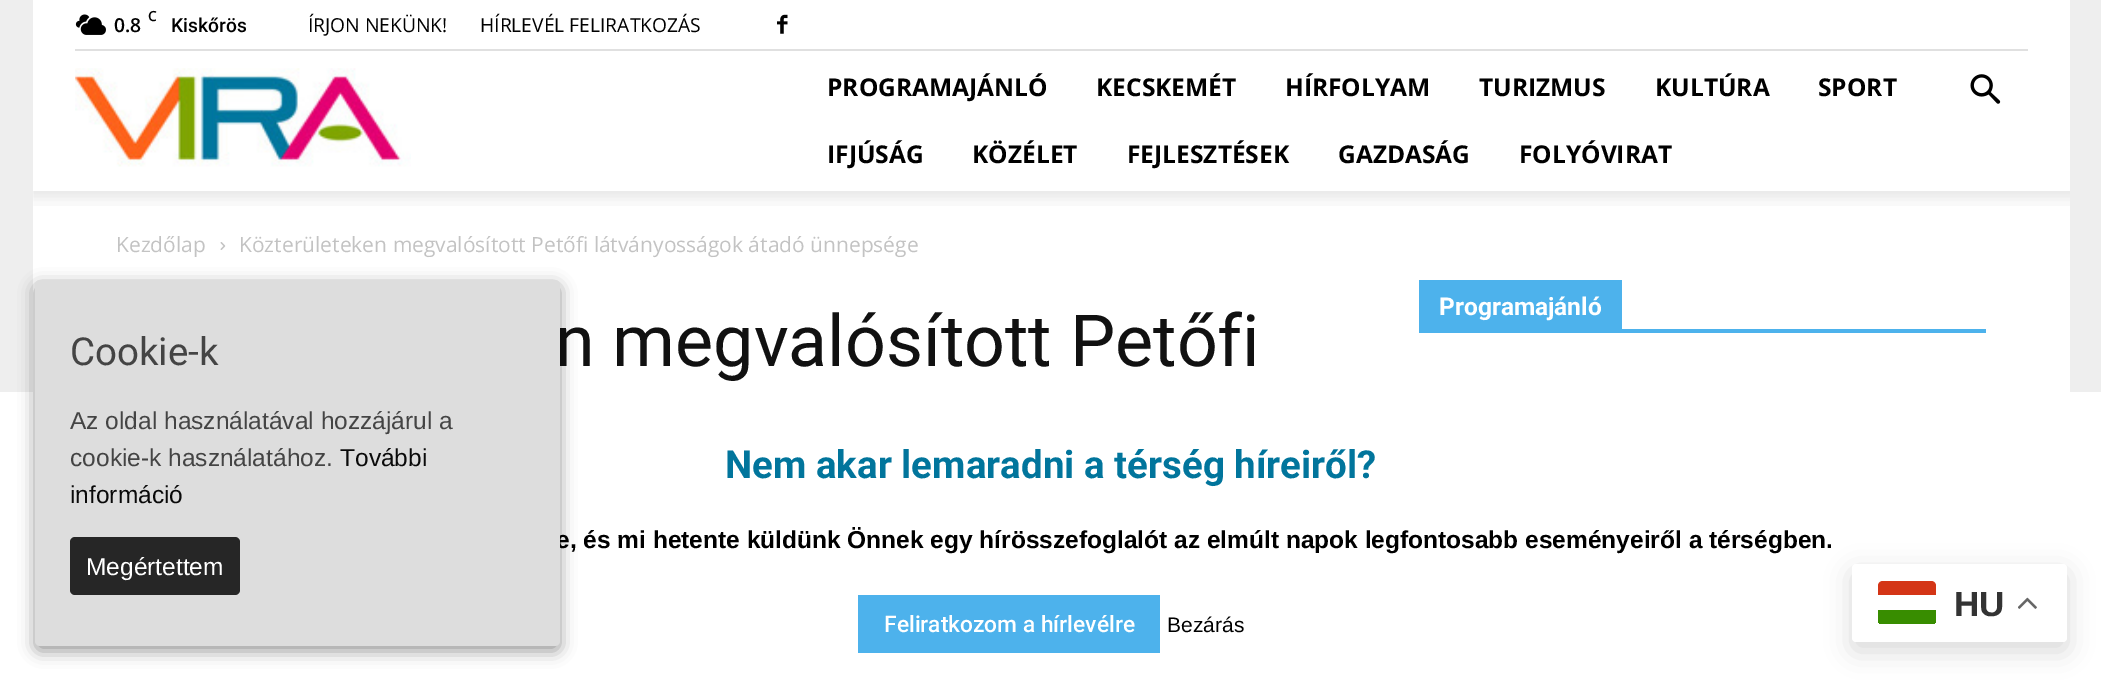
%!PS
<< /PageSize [2101 687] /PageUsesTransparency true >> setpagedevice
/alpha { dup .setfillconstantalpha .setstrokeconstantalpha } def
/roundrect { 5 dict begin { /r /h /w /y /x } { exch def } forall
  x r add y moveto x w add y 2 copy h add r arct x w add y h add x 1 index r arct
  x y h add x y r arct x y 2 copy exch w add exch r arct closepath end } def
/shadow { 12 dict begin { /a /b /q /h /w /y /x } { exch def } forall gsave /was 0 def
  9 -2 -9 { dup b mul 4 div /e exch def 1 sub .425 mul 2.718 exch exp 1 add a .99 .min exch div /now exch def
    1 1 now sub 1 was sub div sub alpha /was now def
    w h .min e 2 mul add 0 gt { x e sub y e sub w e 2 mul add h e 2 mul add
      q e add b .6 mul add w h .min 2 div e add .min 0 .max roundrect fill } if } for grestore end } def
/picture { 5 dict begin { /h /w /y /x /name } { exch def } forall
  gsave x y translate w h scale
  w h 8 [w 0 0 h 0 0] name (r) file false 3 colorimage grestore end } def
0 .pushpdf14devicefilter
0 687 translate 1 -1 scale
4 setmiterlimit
0.933 setgray
0 0 2101 687 rectfill
1 setgray
33 0 2037 191 rectfill
0.878 setgray
75 49 1953 2 rectfill
(img1.rgb) 75 14 31 21 picture
/OpenSans-SemiBold [14 0 0 -14 0 0] selectfont
0 setgray
148 21 moveto (C) show
/OpenSans-SemiBold [19.25 0 0 -19.25 0 0] selectfont
114 32 moveto (0.8) show
/Roboto-Medium [19.25 0 0 -19.25 0 0] selectfont
171 32 moveto (Kiskőrös) show
/OpenSans-Regular [19.25 0 0 -19.25 0 0] selectfont
308 32 moveto (ÍRJON NEKÜNK!) show
480 32 moveto (HÍRLEVÉL FELIRATKOZÁS) show
(img2.rgb) 777 14 11 20 picture
(img3.rgb) 75 68 336 99 picture
/OpenSans-Bold [24.5 0 0 -24.5 0 0] selectfont
827 96 moveto (PROGRAMAJÁNLÓ) show
1096 96 moveto (KECSKEMÉT) show
1285 96 moveto (HÍRFOLYAM) show
1479 96 moveto (TURIZMUS) show
1655 96 moveto (KULTÚRA) show
1818 96 moveto (SPORT) show
827 163 moveto (IFJÚSÁG) show
972 163 moveto (KÖZÉLET) show
1127 163 moveto (FEJLESZTÉSEK) show
1338 163 moveto (GAZDASÁG) show
1519 163 moveto (FOLYÓVIRAT) show
(img4.rgb) 1970 74 31 30 picture
1 setgray
33 191 2037 201 rectfill
(img5.rgb) 33 191 2037 15 picture
/OpenSans-Regular [21 0 0 -21 0 0] selectfont
0.765 setgray
116 252 moveto (Kezdőlap) show
(img6.rgb) 220 242 6 8 picture
239 252 moveto (Közterületeken megvalósított Petőfi látványosságok átadó ünnepsége) show
0.302 0.698 0.925 setrgbcolor
1419 329 567 4 rectfill
1419 280 203 49 rectfill
/Roboto-Bold [24.5 0 0 -24.5 0 0] selectfont
1 setgray
1439 315 moveto (Programajánló) show
/Roboto-Regular [71.75 0 0 -71.75 0 0] selectfont
0.067 setgray
555 366 moveto (n megvalósított Petőfi) show
1 setgray
0 392 2101 295 rectfill
0 setgray
35 285 525 366 5 8 0.4 shadow
/LiberationSans-Bold [24.5 0 0 -24.5 0 0] selectfont
556 548 moveto (e, és mi hetente küldünk Önnek egy hírösszefoglalót az elmúlt napok legfontosabb eseményeiről a térségben.) show
0.867 setgray
35 280 525 366 5 roundrect fill
/Roboto-Regular [38.5 0 0 -38.5 0 0] selectfont
0.267 setgray
70 365 moveto (Cookie-k) show
/LiberationSans-Regular [24.5 0 0 -24.5 0 0] selectfont
70 429 moveto (Az oldal használatával hozzájárul a) show
70 466 moveto (cookie-k használatához.) show
0.039 setgray
340 466 moveto (További) show
70 503 moveto (információ) show
0.149 setgray
70 537 170 58 5 roundrect fill
1 setgray
86 575 moveto (Megértettem) show
/Roboto-Bold [38.5 0 0 -38.5 0 0] selectfont
0.004 0.459 0.612 setrgbcolor
725 478 moveto (Nem akar lemaradni a térség híreiről?) show
0.302 0.698 0.925 setrgbcolor
858 595 302 58 rectfill
/Roboto-Medium [22.75 0 0 -22.75 0 0] selectfont
1 setgray
884 632 moveto (Feliratkozom a hírlevélre) show
/LiberationSans-Regular [21 0 0 -21 0 0] selectfont
0 setgray
1167 632 moveto (Bezárás) show
1852 572 215 79 4 13 0.15 shadow
1 setgray
1852 564 215 78 4 roundrect fill
gsave
1878 581 58 44 5 roundrect clip newpath
0.22 0.553 0 setrgbcolor
1878 610 58 14 rectfill
grestore
0.831 0.208 0.086 setrgbcolor
newpath 1883 581 moveto 1931 581 lineto 1934 581 1936 583 1936 586 curveto 1936 595 lineto 1878 595 lineto 1878 586 lineto 1878 583 1880 581 1883 581 curveto closepath fill
/LiberationSans-Bold [35 0 0 -35 0 0] selectfont
0.2 setgray
1954 616 moveto (HU) show
(img7.rgb) 2018 597 19 12 picture
.poppdf14devicefilter showpage
